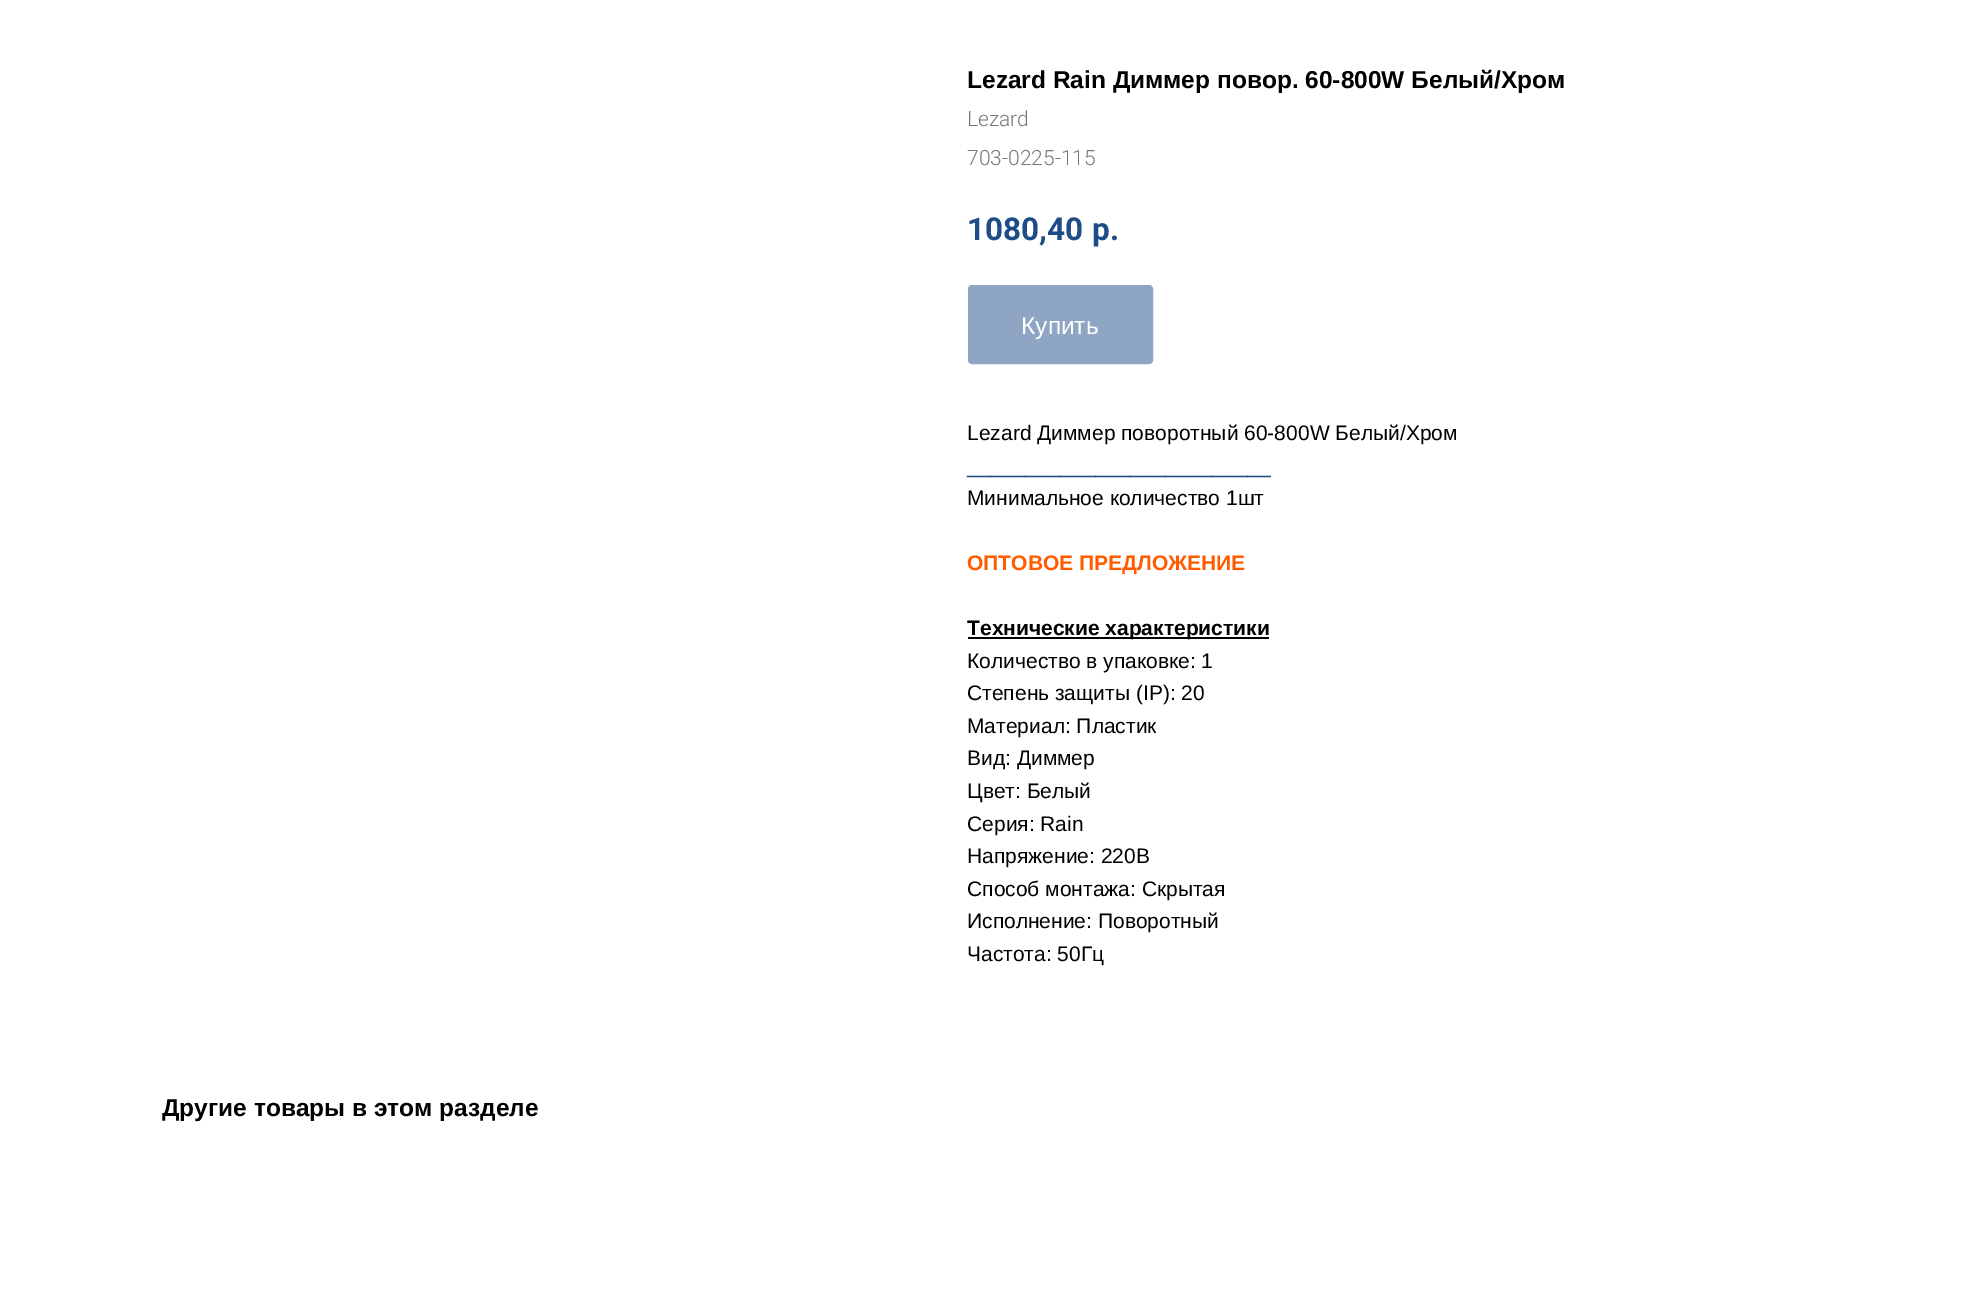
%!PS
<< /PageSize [1968 1314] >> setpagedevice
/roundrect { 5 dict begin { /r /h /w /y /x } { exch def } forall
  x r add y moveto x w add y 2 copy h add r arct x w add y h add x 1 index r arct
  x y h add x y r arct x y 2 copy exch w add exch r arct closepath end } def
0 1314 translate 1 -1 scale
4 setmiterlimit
1 setgray
0 0 1968 1314 rectfill
/LiberationSans-Bold [24.5 0 0 -24.5 0 0] selectfont
0 setgray
967 88 moveto (Lezard Rain Диммер повор. 60-800W Белый/Хром) show
/Roboto-Light [21 0 0 -21 0 0] selectfont
0.467 setgray
967 126 moveto (Lezard) show
967 165 moveto (703-0225-115) show
/Roboto-Bold [31.5 0 0 -31.5 0 0] selectfont
0.114 0.298 0.529 setrgbcolor
967 240 moveto (1080,40) show
1092 240 moveto (р.) show
0.557 0.651 0.765 setrgbcolor
969 286 183 77 3 roundrect gsave fill grestore
2 setlinewidth
stroke
/LiberationSans-Regular [24.5 0 0 -24.5 0 0] selectfont
1 setgray
1021 334 moveto (Купить) show
/LiberationSans-Regular [21 0 0 -21 0 0] selectfont
0 setgray
967 440 moveto (Lezard Диммер поворотный 60-800W Белый/Хром) show
0.114 0.298 0.529 setrgbcolor
967 473 moveto (__________________________) show
0 setgray
967 505 moveto (Минимальное количество 1шт) show
/LiberationSans-Bold [21 0 0 -21 0 0] selectfont
1 0.361 0 setrgbcolor
967 570 moveto (ОПТОВОЕ ПРЕДЛОЖЕНИЕ) show
0 setgray
968 637 301 2 rectfill
967 635 moveto (Технические характеристики) show
/LiberationSans-Regular [21 0 0 -21 0 0] selectfont
967 668 moveto (Количество в упаковке: 1) show
967 700 moveto (Степень защиты \(IP\): 20) show
967 733 moveto (Материал: Пластик) show
967 765 moveto (Вид: Диммер) show
967 798 moveto (Цвет: Белый) show
967 831 moveto (Серия: Rain) show
967 863 moveto (Напряжение: 220В) show
967 896 moveto (Способ монтажа: Скрытая) show
967 928 moveto (Исполнение: Поворотный) show
967 961 moveto (Частота: 50Гц) show
/LiberationSans-Bold [24.5 0 0 -24.5 0 0] selectfont
162 1116 moveto (Другие товары в этом разделе) show
showpage
